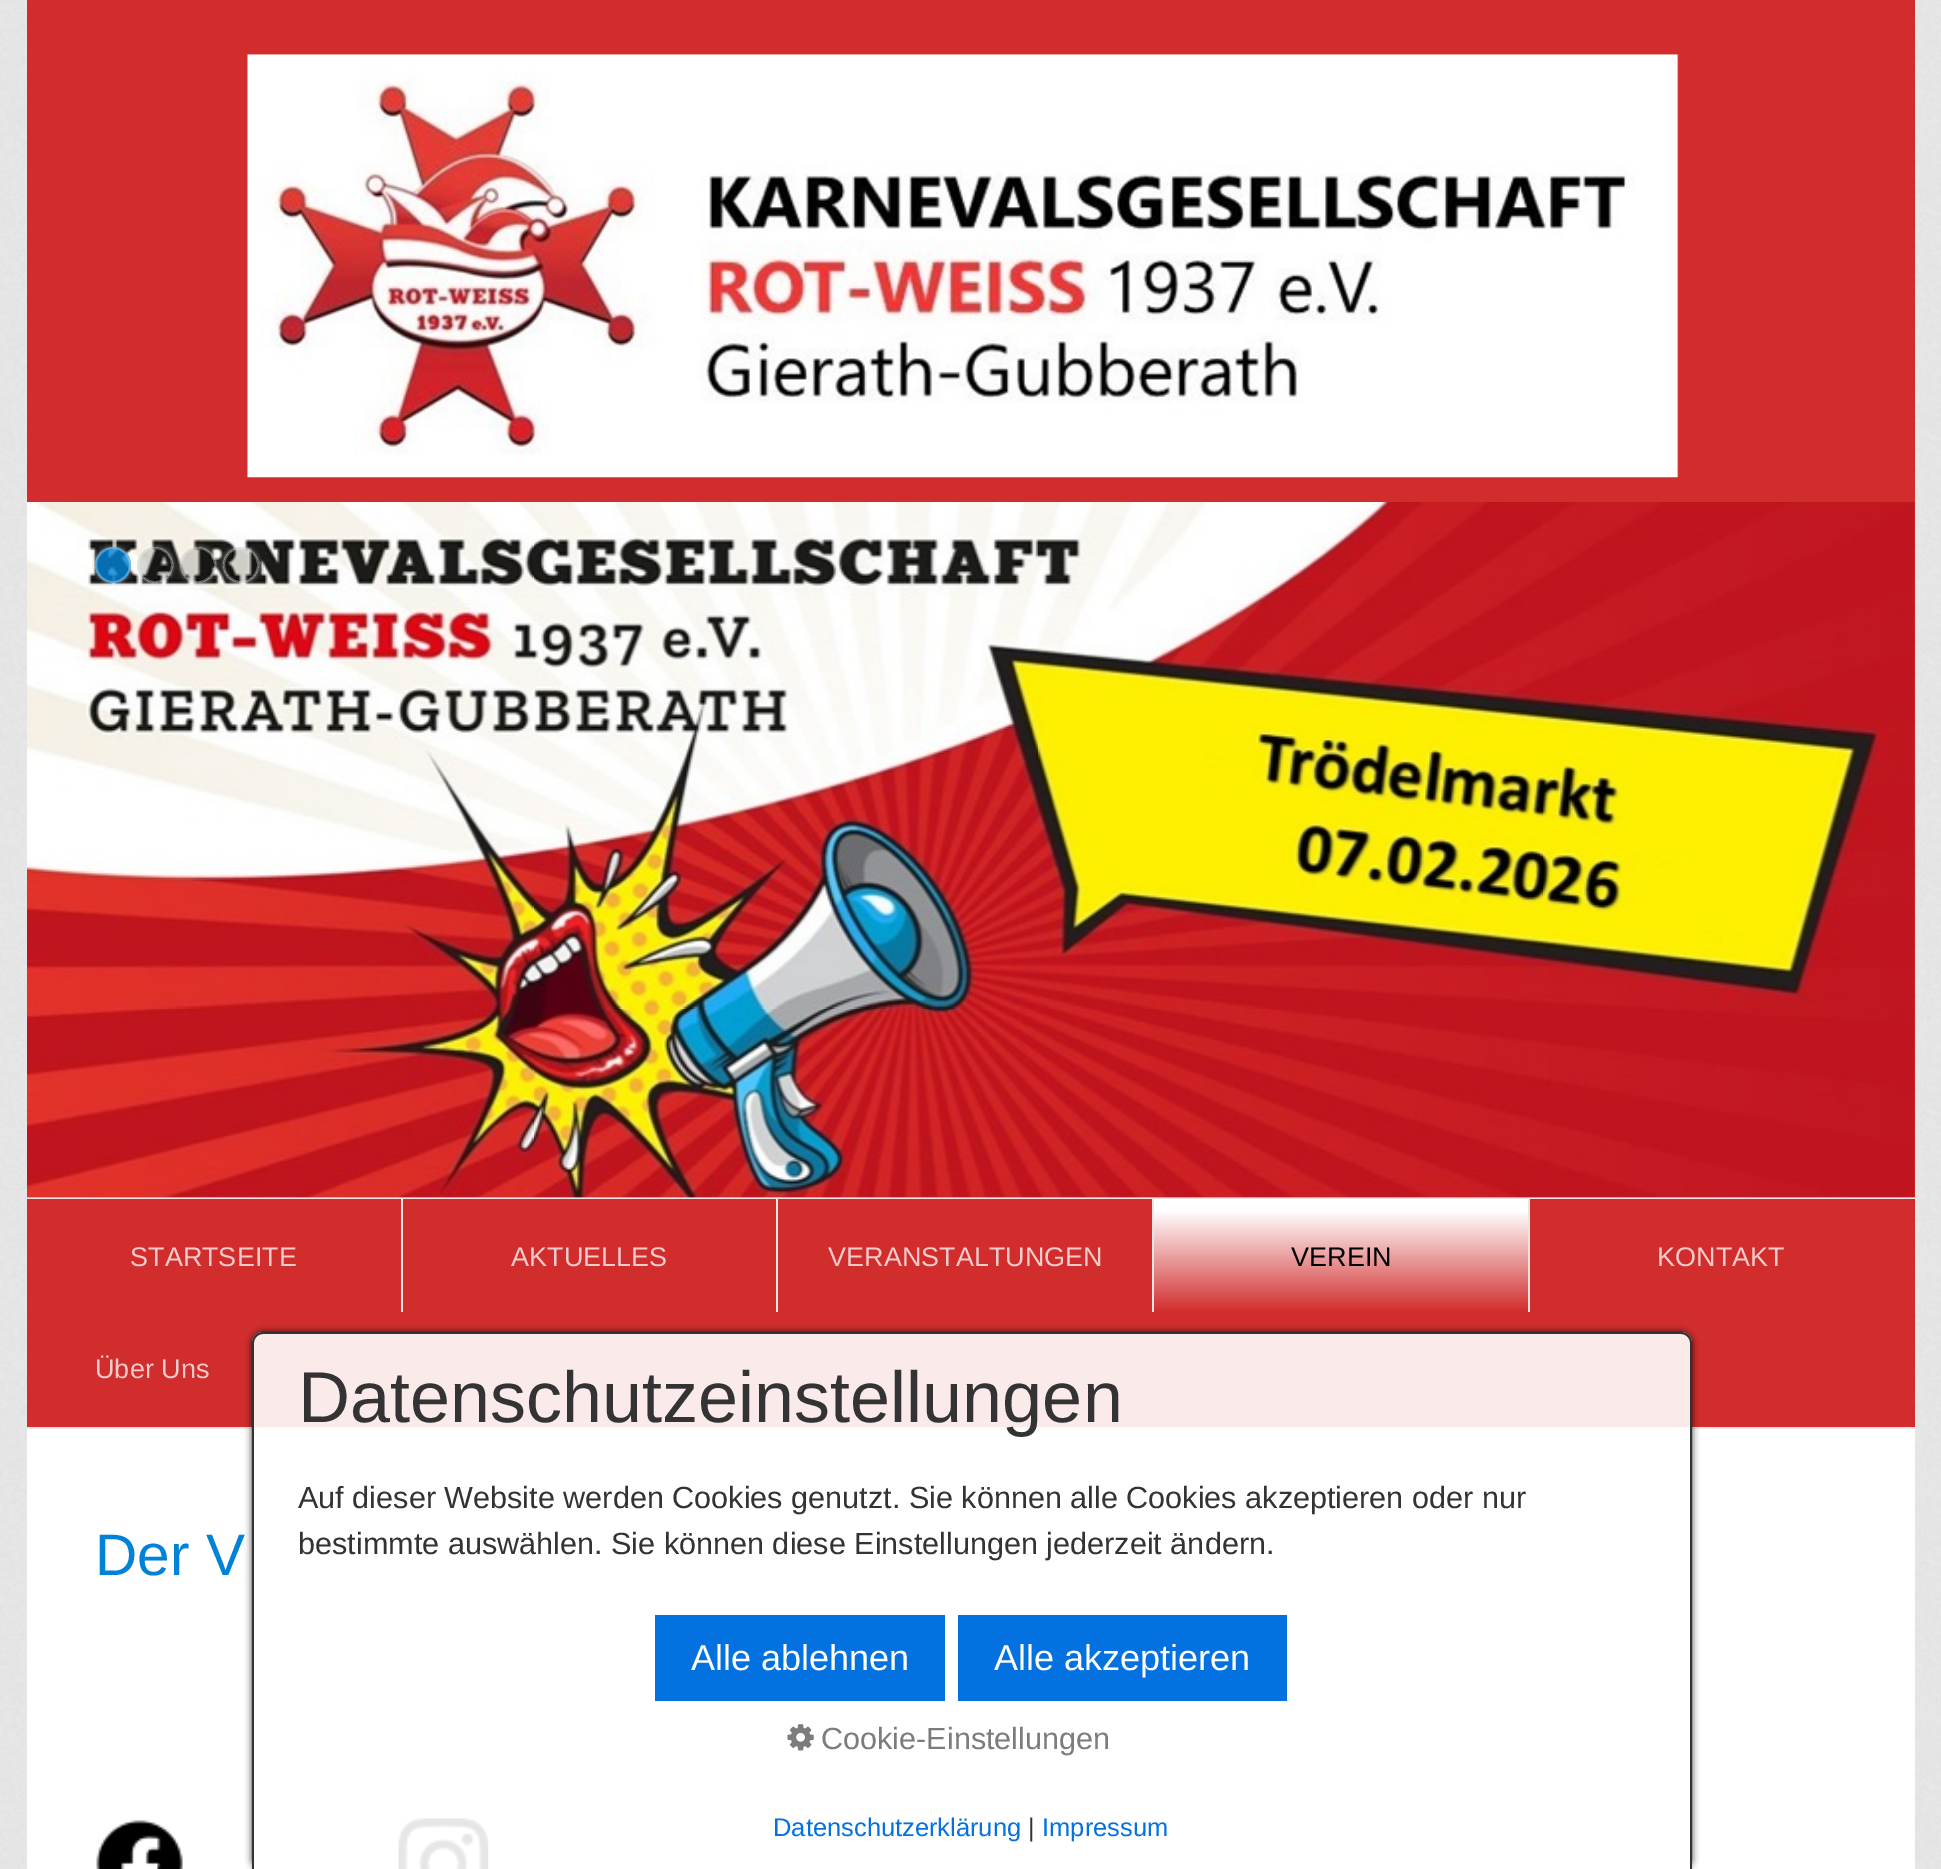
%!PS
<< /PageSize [1941 1869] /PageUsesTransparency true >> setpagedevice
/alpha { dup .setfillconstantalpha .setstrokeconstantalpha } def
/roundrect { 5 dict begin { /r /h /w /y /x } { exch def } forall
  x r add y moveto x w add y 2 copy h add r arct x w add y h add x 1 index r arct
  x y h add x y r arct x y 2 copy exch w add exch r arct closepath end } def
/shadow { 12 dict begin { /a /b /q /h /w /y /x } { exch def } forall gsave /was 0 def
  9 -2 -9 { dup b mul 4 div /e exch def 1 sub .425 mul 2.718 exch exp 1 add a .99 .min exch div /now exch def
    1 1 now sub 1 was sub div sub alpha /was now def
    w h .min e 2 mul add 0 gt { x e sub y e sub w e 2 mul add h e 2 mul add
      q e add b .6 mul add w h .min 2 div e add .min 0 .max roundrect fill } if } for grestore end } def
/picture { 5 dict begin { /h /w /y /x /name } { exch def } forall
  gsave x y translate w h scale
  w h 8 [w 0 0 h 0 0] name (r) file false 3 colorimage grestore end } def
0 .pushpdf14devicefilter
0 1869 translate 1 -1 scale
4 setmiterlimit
1 setgray
0 0 1941 1869 rectfill
(img1.rgb) 0 0 1941 1869 picture
0.824 0.176 0.176 setrgbcolor
27 0 1888 1197 rectfill
(img2.rgb) 247 54 1432 424 picture
0.902 setgray
48 1197 1820 2 rectfill
(img3.rgb) 27 502 1888 696 picture
gsave
newpath 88 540 moveto 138 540 lineto 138 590 lineto 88 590 lineto closepath 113 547 moveto 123 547 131 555 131 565 curveto 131 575 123 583 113 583 curveto 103 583 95 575 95 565 curveto 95 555 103 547 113 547 curveto closepath eoclip newpath
1 setgray
95 547 36 36 18 2 0.5 shadow
grestore
0.8 alpha
0 0.51 0.843 setrgbcolor
newpath 113 565 18 0 360 arc closepath fill
0.3 alpha
1 setgray
2 setlinewidth
newpath 113 565 17 0 360 arc closepath stroke
gsave
newpath 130 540 moveto 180 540 lineto 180 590 lineto 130 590 lineto closepath 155 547 moveto 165 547 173 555 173 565 curveto 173 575 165 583 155 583 curveto 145 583 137 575 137 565 curveto 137 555 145 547 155 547 curveto closepath eoclip newpath
1 alpha
137 547 36 36 18 2 0.5 shadow
grestore
0.15 alpha
0 setgray
newpath 155 565 18 0 360 arc closepath fill
0.3 alpha
1 setgray
newpath 155 565 17 0 360 arc closepath stroke
gsave
newpath 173 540 moveto 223 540 lineto 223 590 lineto 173 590 lineto closepath 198 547 moveto 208 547 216 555 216 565 curveto 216 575 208 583 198 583 curveto 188 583 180 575 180 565 curveto 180 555 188 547 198 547 curveto closepath eoclip newpath
1 alpha
180 547 36 36 18 2 0.5 shadow
grestore
0.15 alpha
0 setgray
newpath 198 565 18 0 360 arc closepath fill
0.3 alpha
1 setgray
newpath 198 565 17 0 360 arc closepath stroke
gsave
newpath 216 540 moveto 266 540 lineto 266 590 lineto 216 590 lineto closepath 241 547 moveto 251 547 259 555 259 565 curveto 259 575 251 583 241 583 curveto 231 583 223 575 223 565 curveto 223 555 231 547 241 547 curveto closepath eoclip newpath
1 alpha
223 547 36 36 18 2 0.5 shadow
grestore
0.15 alpha
0 setgray
newpath 241 565 18 0 360 arc closepath fill
0.3 alpha
1 setgray
newpath 241 565 17 0 360 arc closepath stroke
1 alpha
0.824 0.176 0.176 setrgbcolor
27 1199 1888 228 rectfill
0.902 setgray
401 1199 2 113 rectfill
/LiberationSans-Regular [27 0 0 -27 0 0] selectfont
0.957 0.796 0.796 setrgbcolor
130 1266 moveto (STARTSEITE) show
0.902 setgray
776 1199 2 113 rectfill
0.957 0.796 0.796 setrgbcolor
511 1266 moveto (AKTUELLES) show
0.902 setgray
1152 1199 2 113 rectfill
0.957 0.796 0.796 setrgbcolor
828 1266 moveto (VERANSTALTUNGEN) show
gsave newpath 1154 1199 moveto 1528 1199 lineto 1528 1311 lineto 1154 1311 lineto closepath clip newpath
<< /ShadingType 2 /ColorSpace /DeviceRGB /Coords [1341 1199 1341 1312] /Extend [true true] /Function << /FunctionType 3 /Domain [0 1] /Functions [<< /FunctionType 2 /Domain [0 1] /C0 [1 1 1] /C1 [1 1 1] /N 1 >> << /FunctionType 2 /Domain [0 1] /C0 [1 1 1] /C1 [0.824 0.176 0.176] /N 1 >>] /Bounds [0.1] /Encode [0 1 0 1] >> >> shfill grestore
0.902 setgray
1528 1199 2 113 rectfill
0 setgray
1291 1266 moveto (VEREIN) show
0.957 0.796 0.796 setrgbcolor
1657 1266 moveto (KONTAKT) show
0.902 setgray
27 1427 1867 2 rectfill
0.957 0.796 0.796 setrgbcolor
95 1378 moveto (Über Uns) show
1 setgray
27 1429 1888 440 rectfill
/LiberationSans-Regular [58.5 0 0 -58.5 0 0] selectfont
0 0.51 0.843 setrgbcolor
95 1575 moveto (Der V) show
(img4.rgb) 96 1820 87 49 picture
(img5.rgb) 398 1818 91 51 picture
gsave
newpath 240 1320 moveto 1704 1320 lineto 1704 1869 lineto 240 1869 lineto closepath 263 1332 moveto 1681 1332 lineto 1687 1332 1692 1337 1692 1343 curveto 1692 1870 lineto 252 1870 lineto 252 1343 lineto 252 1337 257 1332 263 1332 curveto closepath eoclip newpath
0 setgray
252 1332 1440 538 11 3.5 0.8 shadow
grestore
0.9 alpha
1 setgray
newpath 263 1332 moveto 1681 1332 lineto 1687 1332 1692 1337 1692 1343 curveto 1692 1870 lineto 252 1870 lineto 252 1343 lineto 252 1337 257 1332 263 1332 curveto closepath fill
1 alpha
0.2 setgray
newpath 263 1332 moveto 1681 1332 lineto 1687 1332 1692 1337 1692 1343 curveto 1692 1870 lineto 252 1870 lineto 252 1343 lineto 252 1337 257 1332 263 1332 curveto closepath 263 1334 moveto 1681 1334 lineto 1686 1334 1690 1338 1690 1343 curveto 1690 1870 lineto 254 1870 lineto 254 1343 lineto 254 1338 258 1334 263 1334 curveto closepath eofill
/LiberationSans-Regular [72 0 0 -72 0 0] selectfont
298 1422 moveto (Datenschutzeinstellungen) show
/LiberationSans-Regular [30.6 0 0 -30.6 0 0] selectfont
298 1508 moveto (Auf dieser Website werden Cookies genutzt. Sie können alle Cookies akzeptieren oder nur) show
298 1554 moveto (bestimmte auswählen. Sie können diese Einstellungen jederzeit ändern.) show
0.012 0.443 0.875 setrgbcolor
655 1615 290 86 rectfill
/LiberationSans-Regular [36 0 0 -36 0 0] selectfont
1 setgray
691 1670 moveto (Alle ablehnen) show
0.012 0.443 0.875 setrgbcolor
958 1615 329 86 rectfill
1 setgray
994 1670 moveto (Alle akzeptieren) show
(img6.rgb) 787 1724 27 27 picture
/LiberationSans-Regular [30.6 0 0 -30.6 0 0] selectfont
0.486 setgray
821 1749 moveto (Cookie-Einstellungen) show
/LiberationSans-Regular [25.5 0 0 -25.5 0 0] selectfont
0.012 0.443 0.875 setrgbcolor
773 1836 moveto (Datenschutzerklärung) show
0.2 setgray
1028 1836 moveto (|) show
0.012 0.443 0.875 setrgbcolor
1042 1836 moveto (Impressum) show
.poppdf14devicefilter showpage
